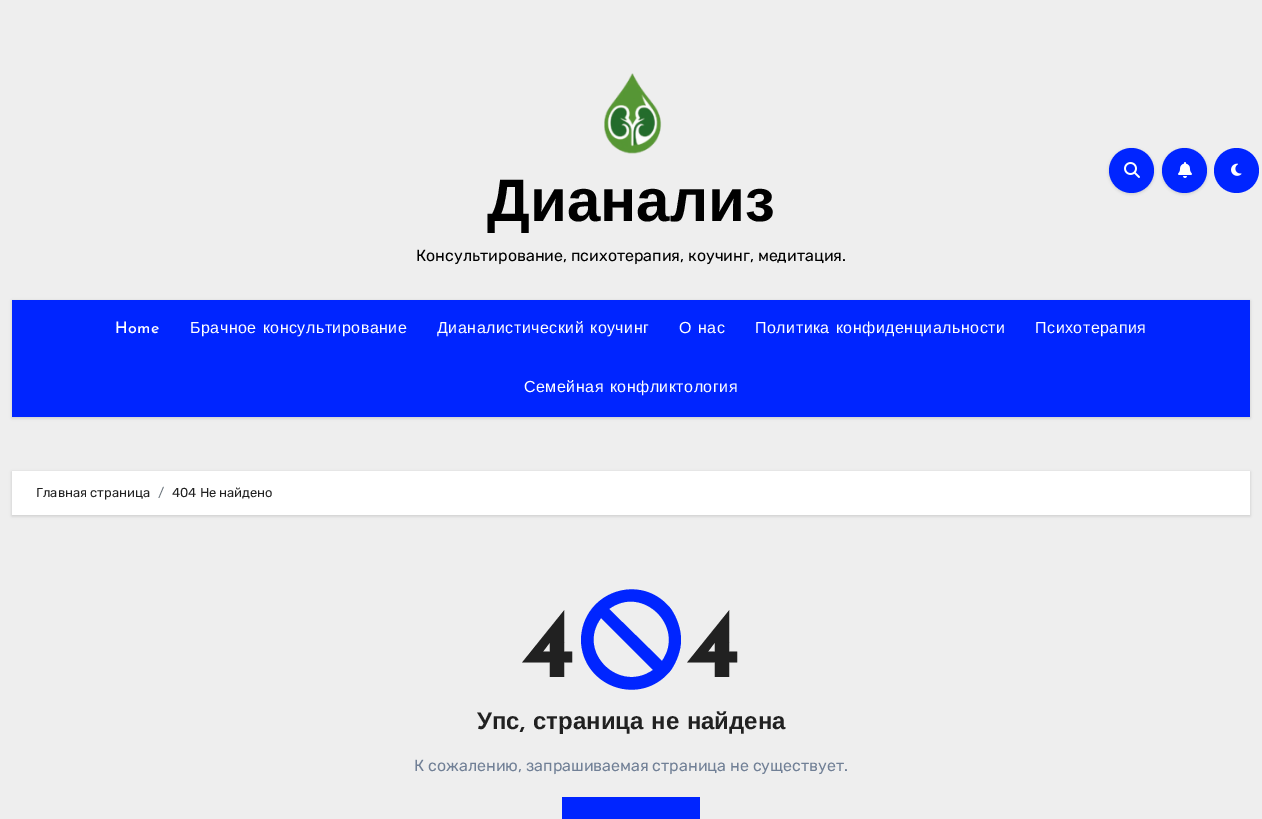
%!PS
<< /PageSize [1262 819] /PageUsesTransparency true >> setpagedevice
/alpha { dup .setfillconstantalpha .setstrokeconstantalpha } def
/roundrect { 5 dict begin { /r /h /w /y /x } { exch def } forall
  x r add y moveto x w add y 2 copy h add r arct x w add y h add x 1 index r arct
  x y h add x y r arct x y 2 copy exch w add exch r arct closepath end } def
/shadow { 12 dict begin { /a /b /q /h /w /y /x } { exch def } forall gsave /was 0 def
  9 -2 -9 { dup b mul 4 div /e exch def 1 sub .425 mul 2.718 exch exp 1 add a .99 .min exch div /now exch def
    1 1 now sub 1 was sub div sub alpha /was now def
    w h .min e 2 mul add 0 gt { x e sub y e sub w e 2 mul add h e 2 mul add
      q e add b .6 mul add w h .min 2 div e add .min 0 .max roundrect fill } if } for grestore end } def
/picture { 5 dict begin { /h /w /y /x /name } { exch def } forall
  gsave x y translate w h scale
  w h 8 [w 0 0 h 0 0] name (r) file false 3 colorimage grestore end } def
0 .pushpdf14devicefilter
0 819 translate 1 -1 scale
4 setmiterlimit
0.933 setgray
0 0 1262 819 rectfill
0 setgray
1109 149 45 45 22.5 1.5 0.15 shadow
0 0.145 1 setrgbcolor
newpath 1131.5 170.5 22.5 0 360 arc closepath fill
(img1.rgb) 1124 162 16 16 picture
0 setgray
1162 149 45 45 22.5 1.5 0.15 shadow
0 0.145 1 setrgbcolor
newpath 1184.5 170.5 22.5 0 360 arc closepath fill
(img2.rgb) 1178 162 14 16 picture
newpath 1236.5 170.5 22.5 0 360 arc closepath fill
(img3.rgb) 1231 163 11 13 picture
(img4.rgb) 604 73 58 81 picture
/LiberationSans-Bold [60 0 0 -60 0 0] selectfont
0 setgray
487 221 moveto (Дианализ) show
/Rubik-Light [16 0 0 -16 0 0] selectfont
416 261 moveto (Консультирование, психотерапия, коучинг, медитация.) show
12 301 1238 117 0 1.5 0.15 shadow
0 0.145 1 setrgbcolor
12 300 1238 117 rectfill
/JosefinSans-Medium [16 0 0 -16 0 0] selectfont
1 setgray
115 333 moveto 0.5 0 (Home) ashow
/LiberationSans-Regular [16 0 0 -16 0 0] selectfont
190 333 moveto 1 0 32 0.5 0 (Брачное консультирование) awidthshow
437 333 moveto 1 0 32 0.5 0 (Дианалистический коучинг) awidthshow
679 333 moveto 1 0 32 0.5 0 (О нас) awidthshow
755 333 moveto 1 0 32 0.5 0 (Политика конфиденциальности) awidthshow
1035 333 moveto 0.5 0 (Психотерапия) ashow
524 392 moveto 1 0 32 0.5 0 (Семейная конфликтология) awidthshow
0 setgray
12 472 1238 44 0 1.5 0.15 shadow
1 setgray
12 471 1238 44 rectfill
/Rubik-Light [13 0 0 -13 0 0] selectfont
0.129 setgray
36 497 moveto (Главная страница) show
0.424 0.459 0.49 setrgbcolor
158 497 moveto (/) show
0.129 setgray
172 497 moveto (404 Не найдено) show
/JosefinSans-Bold [100 0 0 -100 0 0] selectfont
521 677 moveto (4) show
0 0.145 1 setrgbcolor
newpath 653 670 moveto 601 618 lineto 576 652 619 694 653 670 curveto closepath 662 661 moveto 686 627 643 584 609 609 curveto closepath 581 640 moveto 582 592 641 571 671 609 curveto 677 618 681 629 681 640 curveto 681 650 677 661 671 670 curveto 641 708 582 687 581 640 curveto closepath fill
0.129 setgray
686 677 moveto (4) show
/LiberationSans-Bold [24 0 0 -24 0 0] selectfont
477 729 moveto (Упс) show
/JosefinSans-Bold [24 0 0 -24 0 0] selectfont
520 729 moveto (,) show
/LiberationSans-Bold [24 0 0 -24 0 0] selectfont
533 729 moveto 1 0 32 (страница не найдена) widthshow
/Rubik-Light [16 0 0 -16 0 0] selectfont
0.443 0.502 0.588 setrgbcolor
414 771 moveto (К сожалению, запрашиваемая страница не существует.) show
0 0.145 1 setrgbcolor
562 797 138 22 rectfill
.poppdf14devicefilter showpage
